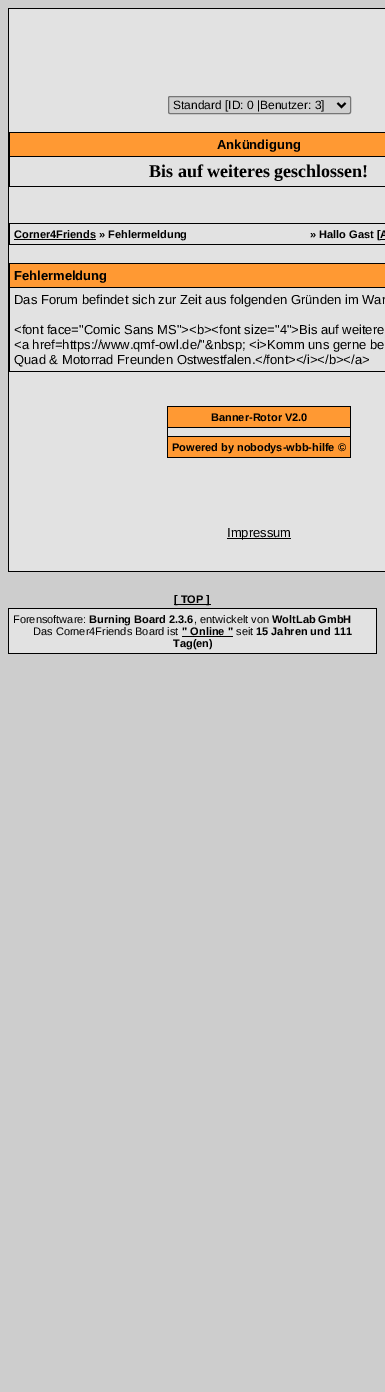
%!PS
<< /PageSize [385 1392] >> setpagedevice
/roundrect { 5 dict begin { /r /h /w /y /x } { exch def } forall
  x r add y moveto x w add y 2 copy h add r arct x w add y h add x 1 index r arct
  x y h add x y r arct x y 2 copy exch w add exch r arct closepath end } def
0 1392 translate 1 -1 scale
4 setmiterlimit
0.804 setgray
0 0 385 1392 rectfill
0 setgray
8 8 377 564 rectfill
0.886 setgray
9 9 376 562 rectfill
0.812 setgray
168.5 96.5 182 17 1.5 roundrect gsave fill grestore
0.463 setgray
stroke
0 setgray
2 setlinewidth
newpath 337.5 103 moveto 341.5 107 lineto 345.5 103 lineto stroke
/LiberationSans-Regular [12 0 0 -12 0 0] selectfont
173 109 moveto (Standard [ID: 0 |Benutzer: 3]) show
9 132 376 55 rectfill
1 0.6 0.2 setrgbcolor
10 133 375 23 rectfill
/LiberationSans-Bold [13 0 0 -13 0 0] selectfont
0 setgray
217 149 moveto (Ankündigung) show
0.886 setgray
10 157 375 29 rectfill
/LiberationSerif-Bold [18 0 0 -18 0 0] selectfont
0 setgray
149 177 moveto (Bis auf weiteres geschlossen!) show
9 223 376 22 rectfill
0.886 setgray
10 224 375 20 rectfill
0 setgray
14 239 82 1 rectfill
/LiberationSans-Bold [11 0 0 -11 0 0] selectfont
14 238 moveto (Corner4Friends » Fehlermeldung) show
310 238 moveto (» Hallo Gast [A) show
380 239 5 1 rectfill
9 263 376 109 rectfill
1 0.6 0.2 setrgbcolor
10 264 375 23 rectfill
/LiberationSans-Bold [13 0 0 -13 0 0] selectfont
0 setgray
14 280 moveto (Fehlermeldung) show
0.886 setgray
10 288 375 83 rectfill
/LiberationSans-Regular [13 0 0 -13 0 0] selectfont
0 setgray
14 304 moveto (Das Forum befindet sich zur Zeit aus folgenden Gründen im War) show
14 334 moveto (<font face="Comic Sans MS"><b><font size="4">Bis auf weitere) show
14 349 moveto (<a href=https://www.qmf-owl.de/"&nbsp; <i>Komm uns gerne be) show
14 364 moveto (Quad & Motorrad Freunden Ostwestfalen.</font></i></b></a>) show
167 406 184 52 rectfill
1 0.6 0.2 setrgbcolor
168 407 182 20 rectfill
/LiberationSans-Bold [11 0 0 -11 0 0] selectfont
0 setgray
211 421 moveto (Banner-Rotor V2.0) show
0.886 setgray
168 428 182 8 rectfill
1 0.6 0.2 setrgbcolor
168 437 182 20 rectfill
0 setgray
172 451 moveto (Powered by nobodys-wbb-hilfe ©) show
227 538 64 1 rectfill
/LiberationSans-Regular [13 0 0 -13 0 0] selectfont
227 537 moveto (Impressum) show
174 604 37 1 rectfill
/LiberationSans-Bold [11 0 0 -11 0 0] selectfont
174 603 moveto ([ TOP ]) show
8 608 369 46 rectfill
0.886 setgray
9 609 367 44 rectfill
/LiberationSans-Regular [11 0 0 -11 0 0] selectfont
0 setgray
13 623 moveto (Forensoftware:) show
/LiberationSans-Bold [11 0 0 -11 0 0] selectfont
89 623 moveto (Burning Board 2.3.6) show
/LiberationSans-Regular [11 0 0 -11 0 0] selectfont
194 623 moveto (, entwickelt von) show
/LiberationSans-Bold [11 0 0 -11 0 0] selectfont
272 623 moveto (WoltLab GmbH) show
/LiberationSans-Regular [11 0 0 -11 0 0] selectfont
33 635 moveto (Das Corner4Friends Board ist) show
/LiberationSans-Bold [11 0 0 -11 0 0] selectfont
182 635 moveto (" Online ") show
182 636 51 1 rectfill
/LiberationSans-Regular [11 0 0 -11 0 0] selectfont
236 635 moveto (seit) show
/LiberationSans-Bold [11 0 0 -11 0 0] selectfont
256 635 moveto (15 Jahren und 111) show
173 647 moveto (Tag\(en\)) show
showpage
